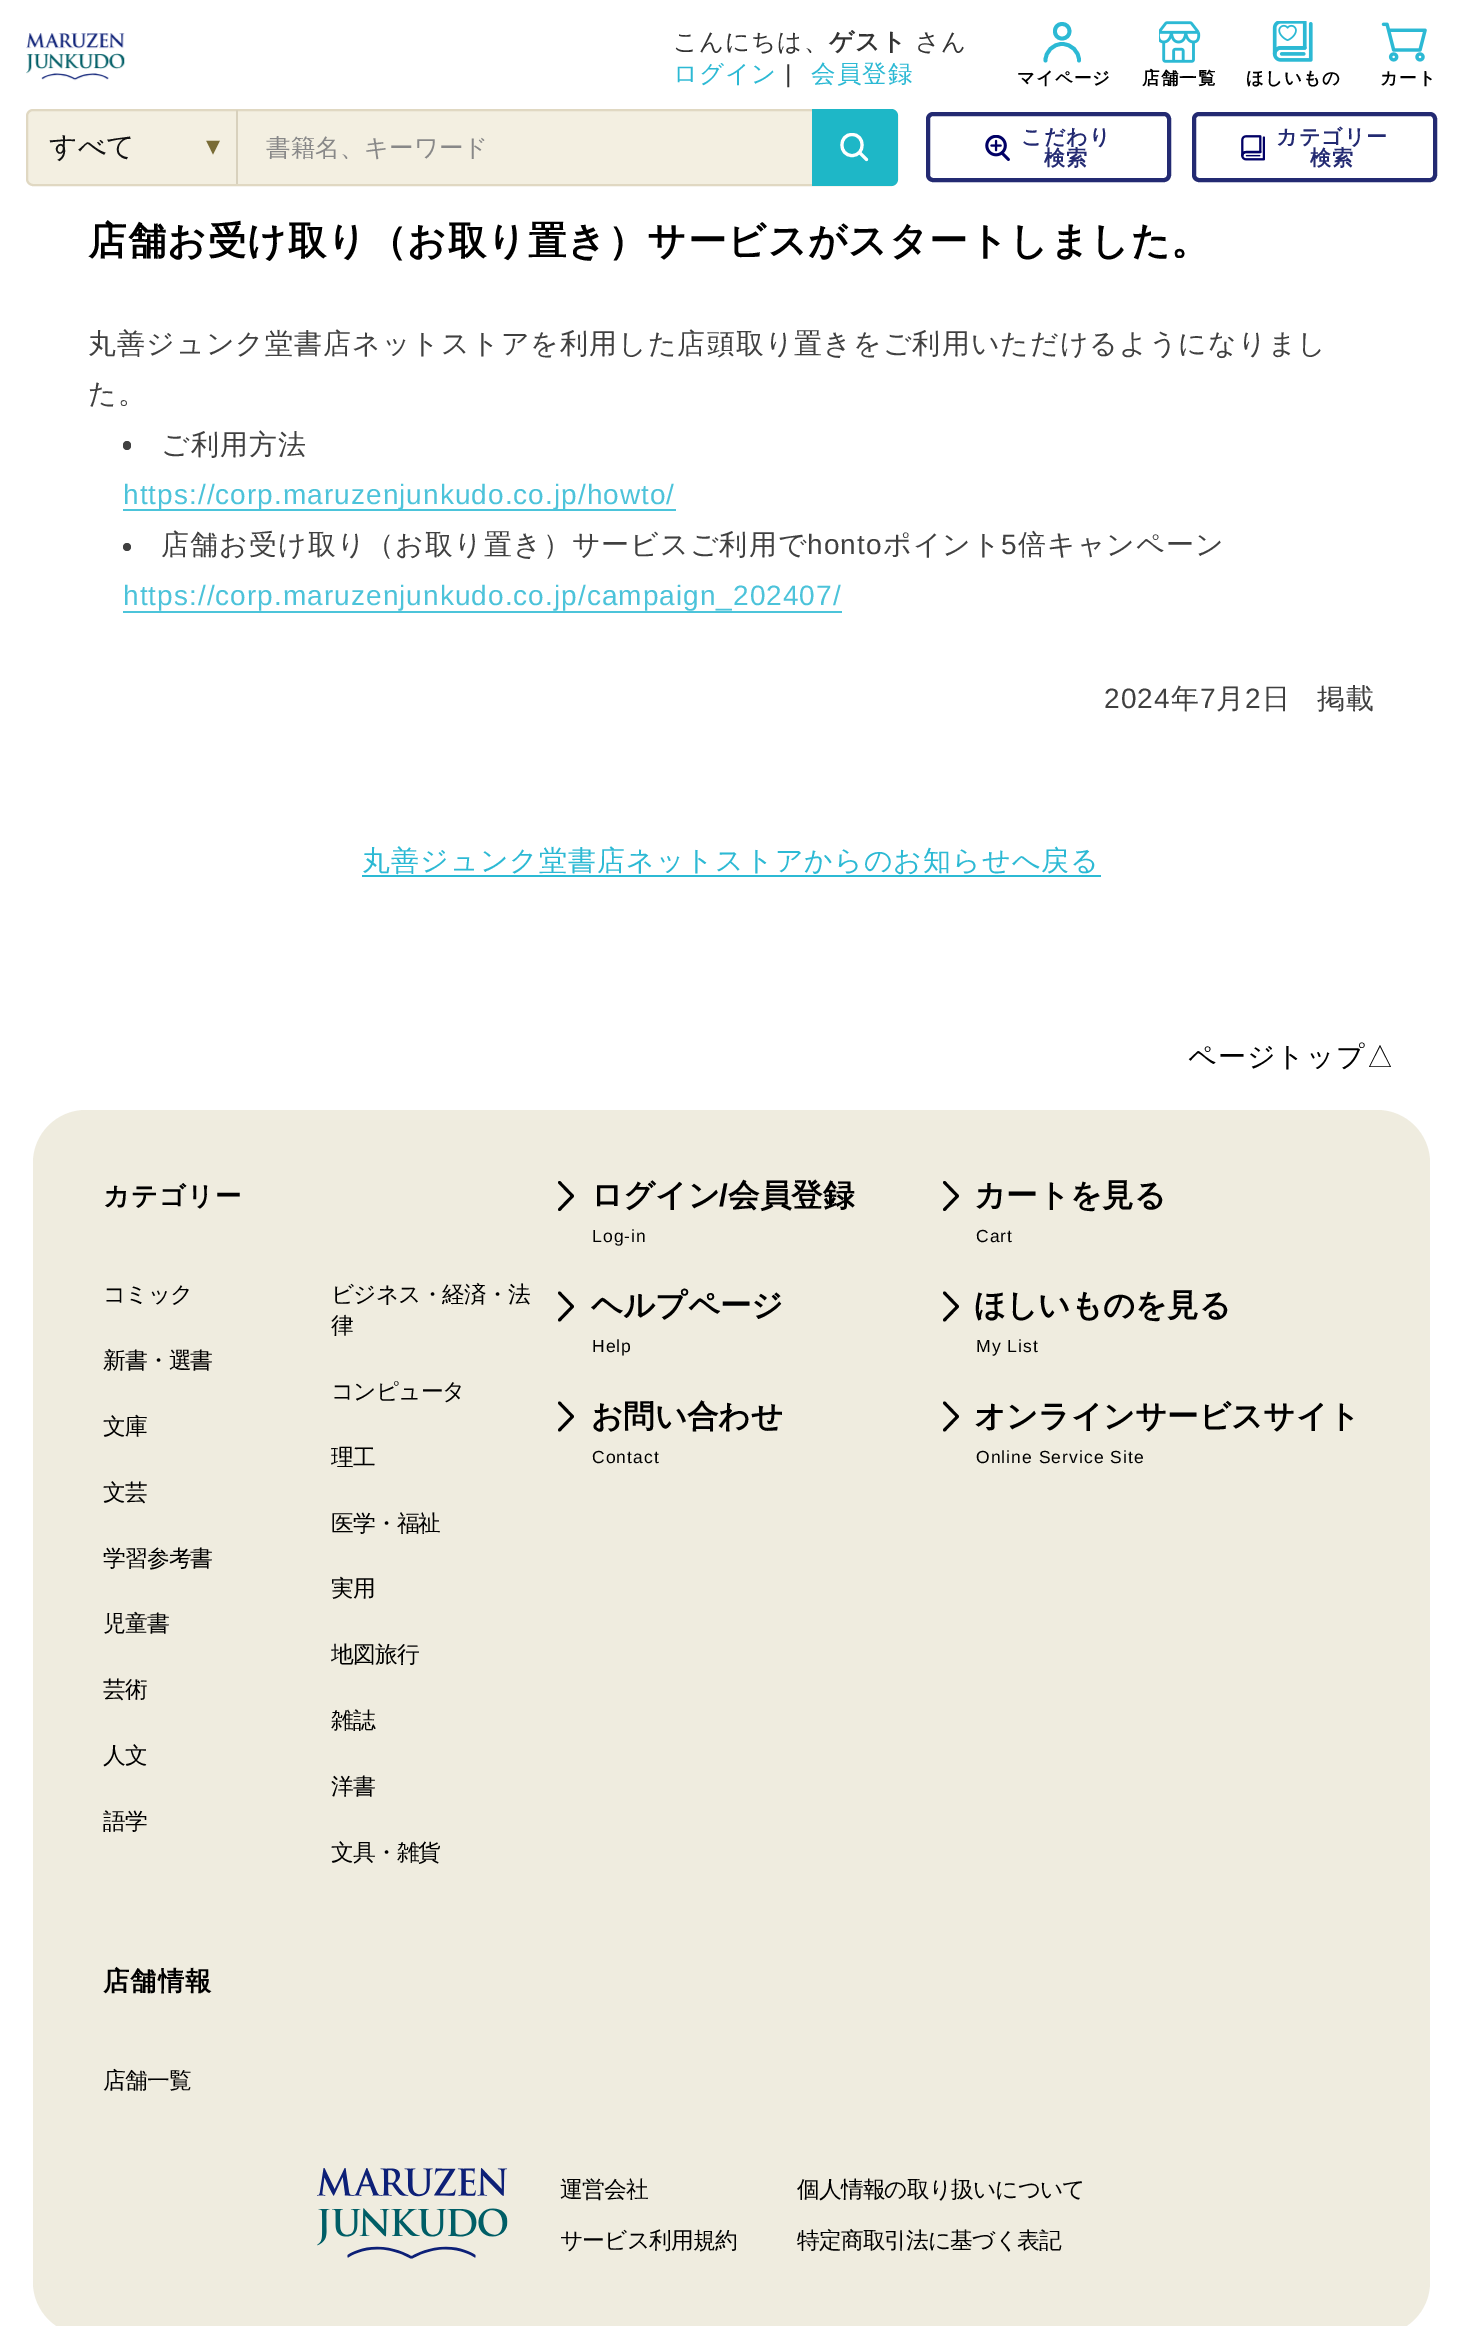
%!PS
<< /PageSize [1463 2326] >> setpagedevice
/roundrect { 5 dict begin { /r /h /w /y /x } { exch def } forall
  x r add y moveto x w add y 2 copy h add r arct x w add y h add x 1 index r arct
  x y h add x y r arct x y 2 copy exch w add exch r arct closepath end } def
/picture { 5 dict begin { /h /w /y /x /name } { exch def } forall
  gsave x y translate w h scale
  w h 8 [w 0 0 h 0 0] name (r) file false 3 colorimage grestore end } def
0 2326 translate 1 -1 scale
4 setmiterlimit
1 setgray
0 0 1463 2326 rectfill
(img1.rgb) 26 33 99 48 picture
/WenQuanYiZenHei-Medium [24.5 0 0 -24.5 0 0] selectfont
0.2 setgray
673 50 moveto 1.05 0 (こんにちは、) ashow
/WenQuanYiZenHei-Bold [24.5 0 0 -24.5 0 0] selectfont
829 50 moveto 1.05 0 (ゲスト) ashow
/WenQuanYiZenHei-Medium [24.5 0 0 -24.5 0 0] selectfont
915 50 moveto 1.05 0 (さん) ashow
0.173 0.725 0.831 setrgbcolor
673 82 moveto 1.05 0 (ログイン) ashow
/LiberationSans-Regular [24.5 0 0 -24.5 0 0] selectfont
0.2 setgray
785 82 moveto 1.05 0 (|) ashow
/WenQuanYiZenHei-Medium [24.5 0 0 -24.5 0 0] selectfont
0.173 0.725 0.831 setrgbcolor
811 82 moveto 1.05 0 (会員登録) ashow
3.8 setlinewidth
1 setlinecap
1 setlinejoin
newpath 1062 38.5 moveto 1072 38.5 1072 24 1062 24 curveto 1052.5 24 1052.5 38.5 1062 38.5 curveto closepath 1079 60.5 moveto 1079 51.5 1071.5 44 1062 44 curveto 1053 44 1045.5 51.5 1045.5 60.5 curveto stroke
/WenQuanYiZenHei-Bold [17.5 0 0 -17.5 0 0] selectfont
0 setgray
1017 84 moveto 1.05 0 (マイページ) ashow
(img2.rgb) 1159 21 42 42 picture
1142 84 moveto 1.05 0 (店舗一覧) ashow
(img3.rgb) 1272 21 41 41 picture
1246 84 moveto 1.05 0 (ほしいもの) ashow
(img4.rgb) 1381 22 46 40 picture
1380 84 moveto 1.05 0 (カート) ashow
0.953 0.937 0.882 setrgbcolor
27 110 870 75 6 roundrect gsave fill grestore
0.878 0.847 0.761 setrgbcolor
2 setlinewidth
0 setlinecap
0 setlinejoin
stroke
0.118 0.718 0.78 setrgbcolor
newpath 814 109 moveto 891 109 lineto 895 109 898 112 898 116 curveto 898 179 lineto 898 183 895 186 891 186 curveto 814 186 lineto closepath fill
newpath 812 109 moveto 889 109 lineto 893 109 896 112 896 116 curveto 896 179 lineto 896 183 893 186 889 186 curveto 812 186 lineto closepath fill
1 setgray
3.1 setlinewidth
newpath 852 155.5 moveto 865.5 155.5 865.5 134.5 852 134.5 curveto 838.5 134.5 838.5 155.5 852 155.5 curveto closepath stroke
1 setlinecap
newpath 860 153 moveto 866.5 159.5 lineto stroke
/WenQuanYiZenHei-Medium [28 0 0 -28 0 0] selectfont
0.067 setgray
49 156 moveto (すべて) show
/DejaVuSans-Regular [28 0 0 -28 0 0] selectfont
0.475 0.424 0.212 setrgbcolor
206 155 moveto 1.05 0 (▾) ashow
0.847 0.82 0.741 setrgbcolor
236 110 2 74 rectfill
/WenQuanYiZenHei-Medium [24.5 0 0 -24.5 0 0] selectfont
0.533 setgray
266 156 moveto (書籍名、キーワード) show
0.137 0.165 0.447 setrgbcolor
4 setlinewidth
0 setlinecap
928 114 241 66 5 roundrect stroke
(img5.rgb) 985 135 25 26 picture
/WenQuanYiZenHei-Bold [21 0 0 -21 0 0] selectfont
1021 144 moveto 1.05 0 (こだわり) ashow
1044 165 moveto 1.05 0 (検索) ashow
1194 114 241 66 5 roundrect stroke
(img6.rgb) 1241 135 24 26 picture
1276 144 moveto 1.05 0 (カテゴリー) ashow
1310 165 moveto 1.05 0 (検索) ashow
/WenQuanYiZenHei-Bold [38.5 0 0 -38.5 0 0] selectfont
0 setgray
88 254 moveto 1.05 0 (店舗お受け取り（お取り置き）サービスがスタートしました。) ashow
/WenQuanYiZenHei-Medium [28 0 0 -28 0 0] selectfont
0.251 setgray
88 353 moveto 1.05 0 (丸善ジュンク堂書店ネットストアを利用した店頭取り置きをご利用いただけるようになりまし) ashow
88 403 moveto 1.05 0 (た。) ashow
123 441 8 9 4 roundrect fill
161 454 moveto 1.05 0 (ご利用方法) ashow
0.298 0.769 0.855 setrgbcolor
123 509 553 2 rectfill
/LiberationSans-Regular [28 0 0 -28 0 0] selectfont
0.298 0.765 0.855 setrgbcolor
123 504 moveto 1.05 0 (https://corp.maruzenjunkudo.co.jp/howto/) ashow
0.251 setgray
newpath 127 547 4 0 360 arc closepath fill
/WenQuanYiZenHei-Medium [28 0 0 -28 0 0] selectfont
161 554 moveto 1.05 0 (店舗お受け取り（お取り置き）サービスご利用で) ashow
/LiberationSans-Regular [28 0 0 -28 0 0] selectfont
807 554 moveto 1.05 0 (honto) ashow
/WenQuanYiZenHei-Medium [28 0 0 -28 0 0] selectfont
883 554 moveto 1.05 0 (ポイント) ashow
/LiberationSans-Regular [28 0 0 -28 0 0] selectfont
1001 554 moveto 1.05 0 (5) ashow
/WenQuanYiZenHei-Medium [28 0 0 -28 0 0] selectfont
1018 554 moveto 1.05 0 (倍キャンペーン) ashow
/LiberationSans-Regular [28 0 0 -28 0 0] selectfont
0.298 0.765 0.855 setrgbcolor
123 605 moveto 1.05 0 (https://corp.maruzenjunkudo.co.jp/campaign_202407/) ashow
0.298 0.769 0.855 setrgbcolor
123 611 719 2 rectfill
0.251 setgray
1104 708 moveto 1.05 0 (2024) ashow
/WenQuanYiZenHei-Medium [28 0 0 -28 0 0] selectfont
1171 708 moveto 1.05 0 (年) ashow
/LiberationSans-Regular [28 0 0 -28 0 0] selectfont
1200 708 moveto 1.05 0 (7) ashow
/WenQuanYiZenHei-Medium [28 0 0 -28 0 0] selectfont
1216 708 moveto 1.05 0 (月) ashow
/LiberationSans-Regular [28 0 0 -28 0 0] selectfont
1245 708 moveto 1.05 0 (2) ashow
/WenQuanYiZenHei-Medium [28 0 0 -28 0 0] selectfont
1262 708 moveto 1.05 0 (日) ashow
1317 708 moveto 1.05 0 (掲載) ashow
0.173 0.725 0.831 setrgbcolor
362 870 moveto 1.05 0 (丸善ジュンク堂書店ネットストアからのお知らせへ戻る) ashow
362 875 739 2 rectfill
0 setgray
1188 1066 moveto 1.05 0 (ページトップ△) ashow
0.937 0.925 0.875 setrgbcolor
33 1110 1397 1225 53 roundrect fill
/WenQuanYiZenHei-Bold [26.25 0 0 -26.25 0 0] selectfont
0 setgray
103 1205 moveto 1.05 0 (カテゴリー) ashow
/WenQuanYiZenHei-Medium [22.75 0 0 -22.75 0 0] selectfont
103 1302 moveto -0.9 0 (コミック) ashow
331 1302 moveto -0.9 0 (ビジネス・経済・法) ashow
331 1333 moveto -0.9 0 (律) ashow
103 1368 moveto -0.9 0 (新書・選書) ashow
331 1399 moveto -0.9 0 (コンピュータ) ashow
103 1434 moveto -0.9 0 (文庫) ashow
331 1465 moveto -0.9 0 (理工) ashow
103 1500 moveto -0.9 0 (文芸) ashow
331 1531 moveto -0.9 0 (医学・福祉) ashow
103 1566 moveto -0.9 0 (学習参考書) ashow
331 1596 moveto -0.9 0 (実用) ashow
103 1631 moveto -0.9 0 (児童書) ashow
331 1662 moveto -0.9 0 (地図旅行) ashow
103 1697 moveto -0.9 0 (芸術) ashow
331 1728 moveto -0.9 0 (雑誌) ashow
103 1763 moveto -0.9 0 (人文) ashow
331 1794 moveto -0.9 0 (洋書) ashow
103 1829 moveto -0.9 0 (語学) ashow
331 1860 moveto -0.9 0 (文具・雑貨) ashow
/WenQuanYiZenHei-Bold [26.25 0 0 -26.25 0 0] selectfont
103 1990 moveto 1.05 0 (店舗情報) ashow
/WenQuanYiZenHei-Medium [22.75 0 0 -22.75 0 0] selectfont
103 2088 moveto -0.9 0 (店舗一覧) ashow
2.9 setlinewidth
1 setlinecap
1 setlinejoin
newpath 559.5 1182.5 moveto 572.5 1196 lineto 559.5 1209.5 lineto stroke
/WenQuanYiZenHei-Bold [31.5 0 0 -31.5 0 0] selectfont
591 1206 moveto (ログイン) show
/LiberationSans-Bold [31.5 0 0 -31.5 0 0] selectfont
719 1206 moveto (/) show
/WenQuanYiZenHei-Bold [31.5 0 0 -31.5 0 0] selectfont
728 1206 moveto (会員登録) show
/LiberationSans-Regular [17.5 0 0 -17.5 0 0] selectfont
592 1242 moveto 1.05 0 (Log-in) ashow
newpath 944.5 1182.5 moveto 957.5 1196 lineto 944.5 1209.5 lineto stroke
/WenQuanYiZenHei-Bold [31.5 0 0 -31.5 0 0] selectfont
974 1206 moveto (カートを見る) show
/LiberationSans-Regular [17.5 0 0 -17.5 0 0] selectfont
976 1242 moveto 1.05 0 (Cart) ashow
newpath 559.5 1293 moveto 572.5 1306.5 lineto 559.5 1320 lineto stroke
/WenQuanYiZenHei-Bold [31.5 0 0 -31.5 0 0] selectfont
591 1316 moveto (ヘルプページ) show
/LiberationSans-Regular [17.5 0 0 -17.5 0 0] selectfont
592 1352 moveto 1.05 0 (Help) ashow
newpath 944.5 1293 moveto 957.5 1306.5 lineto 944.5 1320 lineto stroke
/WenQuanYiZenHei-Bold [31.5 0 0 -31.5 0 0] selectfont
974 1316 moveto (ほしいものを見る) show
/LiberationSans-Regular [17.5 0 0 -17.5 0 0] selectfont
976 1352 moveto 1.05 0 (My List) ashow
newpath 559.5 1403 moveto 572.5 1416.5 lineto 559.5 1430 lineto stroke
/WenQuanYiZenHei-Bold [31.5 0 0 -31.5 0 0] selectfont
591 1427 moveto (お問い合わせ) show
/LiberationSans-Regular [17.5 0 0 -17.5 0 0] selectfont
592 1463 moveto 1.05 0 (Contact) ashow
newpath 944.5 1403 moveto 957.5 1416.5 lineto 944.5 1430 lineto stroke
/WenQuanYiZenHei-Bold [31.5 0 0 -31.5 0 0] selectfont
974 1427 moveto (オンラインサービスサイト) show
/LiberationSans-Regular [17.5 0 0 -17.5 0 0] selectfont
976 1463 moveto 1.05 0 (Online Service Site) ashow
(img7.rgb) 317 2168 191 91 picture
/WenQuanYiZenHei-Medium [22.75 0 0 -22.75 0 0] selectfont
560 2197 moveto -0.9 0 (運営会社) ashow
560 2248 moveto -0.9 0 (サービス利用規約) ashow
797 2197 moveto -0.9 0 (個人情報の取り扱いについて) ashow
797 2248 moveto -0.9 0 (特定商取引法に基づく表記) ashow
showpage
